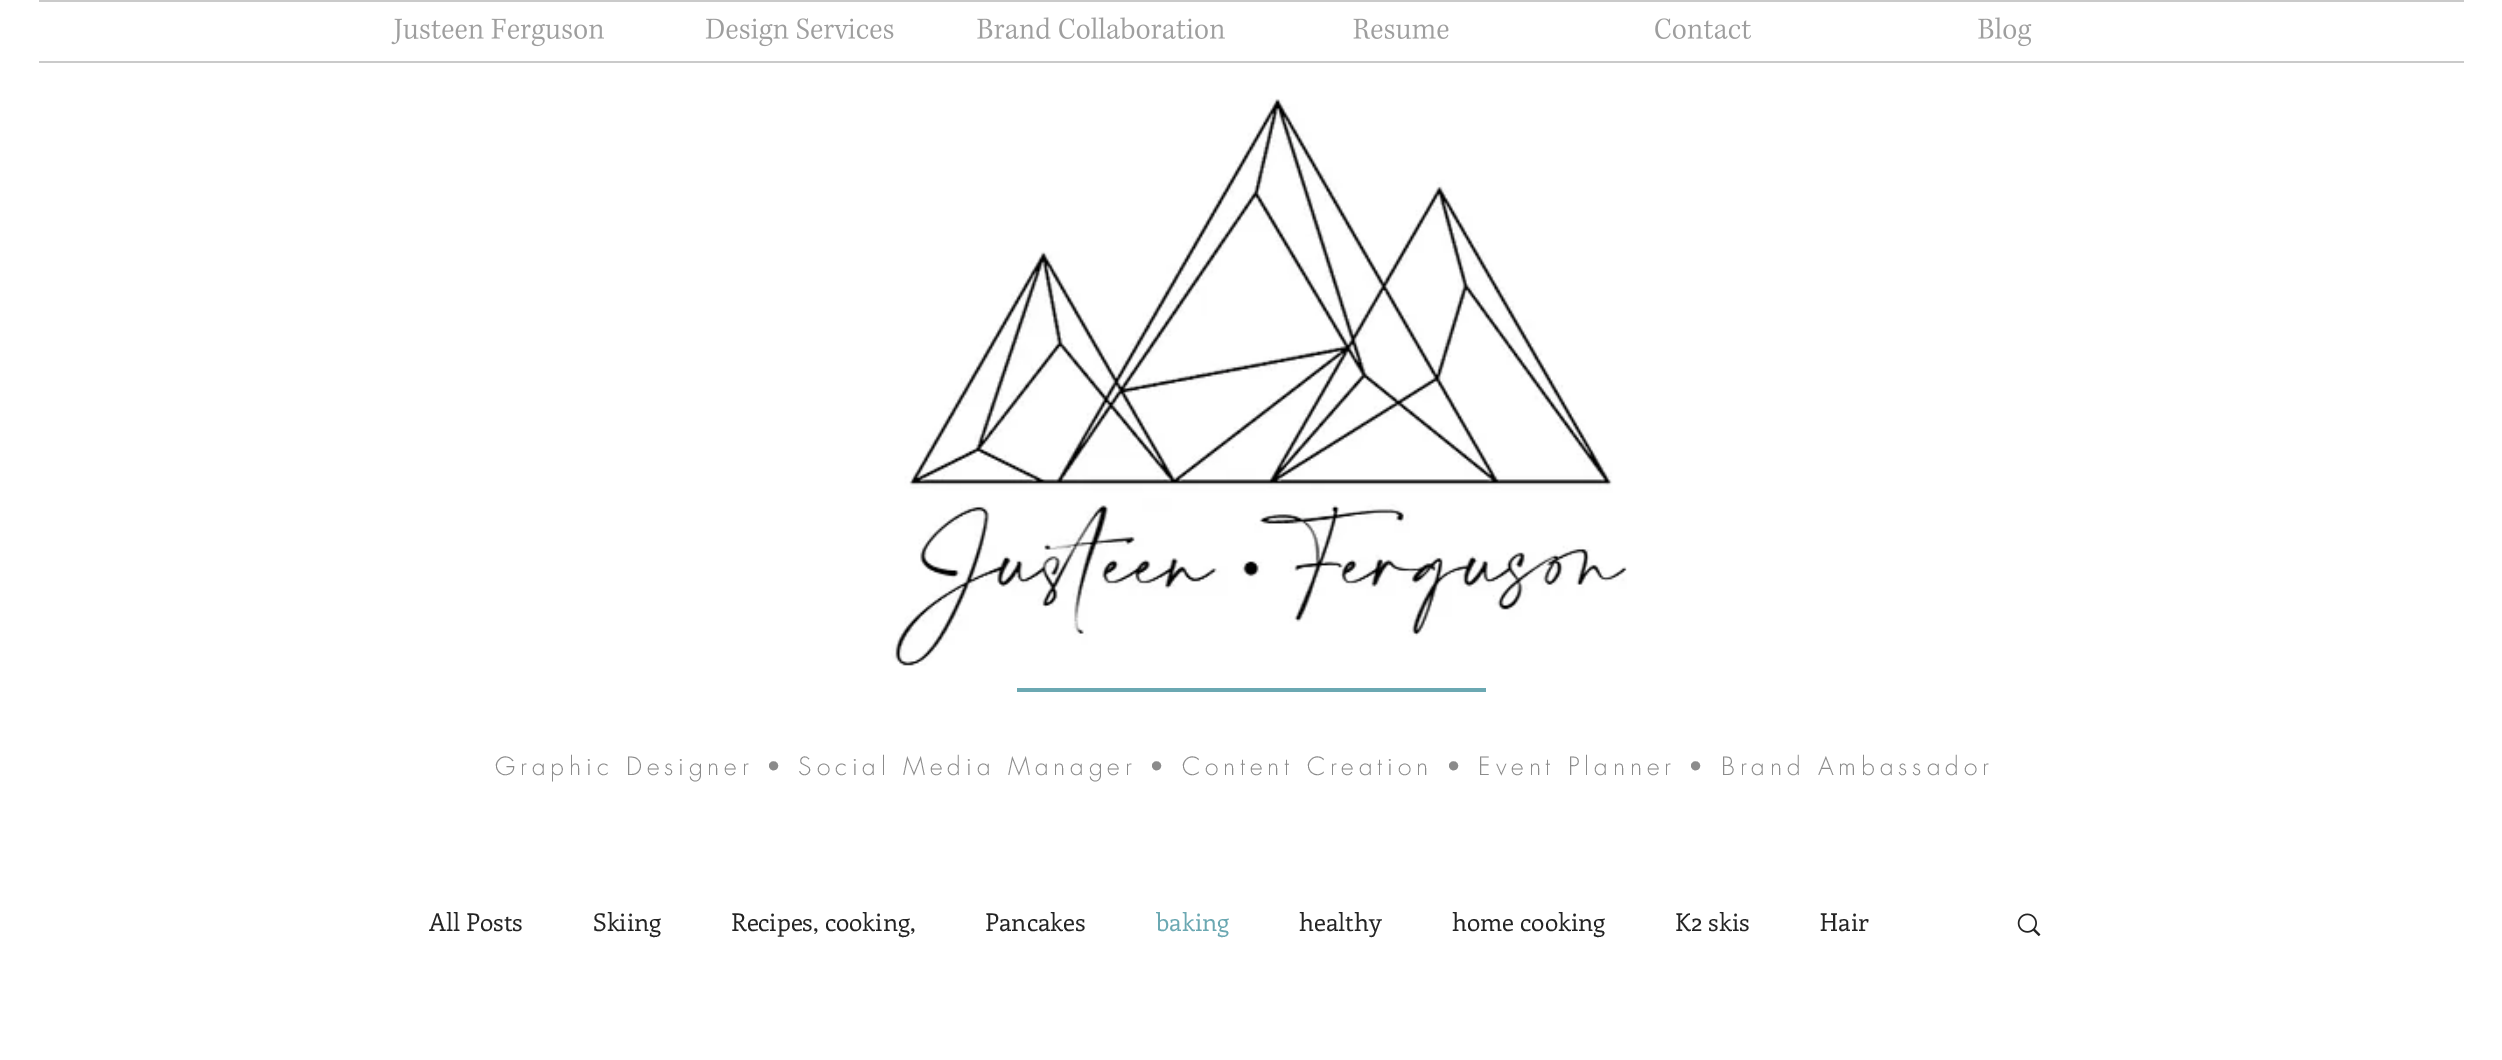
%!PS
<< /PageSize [2502 1060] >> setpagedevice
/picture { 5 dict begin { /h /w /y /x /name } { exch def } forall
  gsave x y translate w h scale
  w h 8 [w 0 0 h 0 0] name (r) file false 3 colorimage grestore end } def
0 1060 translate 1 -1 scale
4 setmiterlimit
1 setgray
0 0 2502 1060 rectfill
0.792 setgray
39 0 2425 2 rectfill
39 61 2425 2 rectfill
(img1.rgb) 391 18 213 29 picture
(img2.rgb) 705 18 189 29 picture
(img3.rgb) 977 17 248 22 picture
(img4.rgb) 1353 18 96 21 picture
(img5.rgb) 1655 18 96 21 picture
(img6.rgb) 1978 17 54 30 picture
(img7.rgb) 891 98 736 568 picture
0.42 0.659 0.698 setrgbcolor
1017 688 469 4 rectfill
/futura-Light [24.5 0 0 -24.5 0 0] selectfont
0.545 setgray
495 775 moveto 4.9 0 (Graphic Designer • Social Media Manager • Content Creation • Event Planner • Brand Ambassador) ashow
/Enriqueta-Regular [24.5 0 0 -24.5 0 0] selectfont
0.141 setgray
429 931 moveto (All Posts) show
593 931 moveto (Skiing) show
731 931 moveto (Recipes, cooking,) show
985 931 moveto (Pancakes) show
0.42 0.659 0.698 setrgbcolor
1156 931 moveto (baking) show
0.141 setgray
1299 931 moveto (healthy) show
1452 931 moveto (home cooking) show
1675 931 moveto (K2 skis) show
1820 931 moveto (Hair) show
(img8.rgb) 2017 913 24 24 picture
showpage
